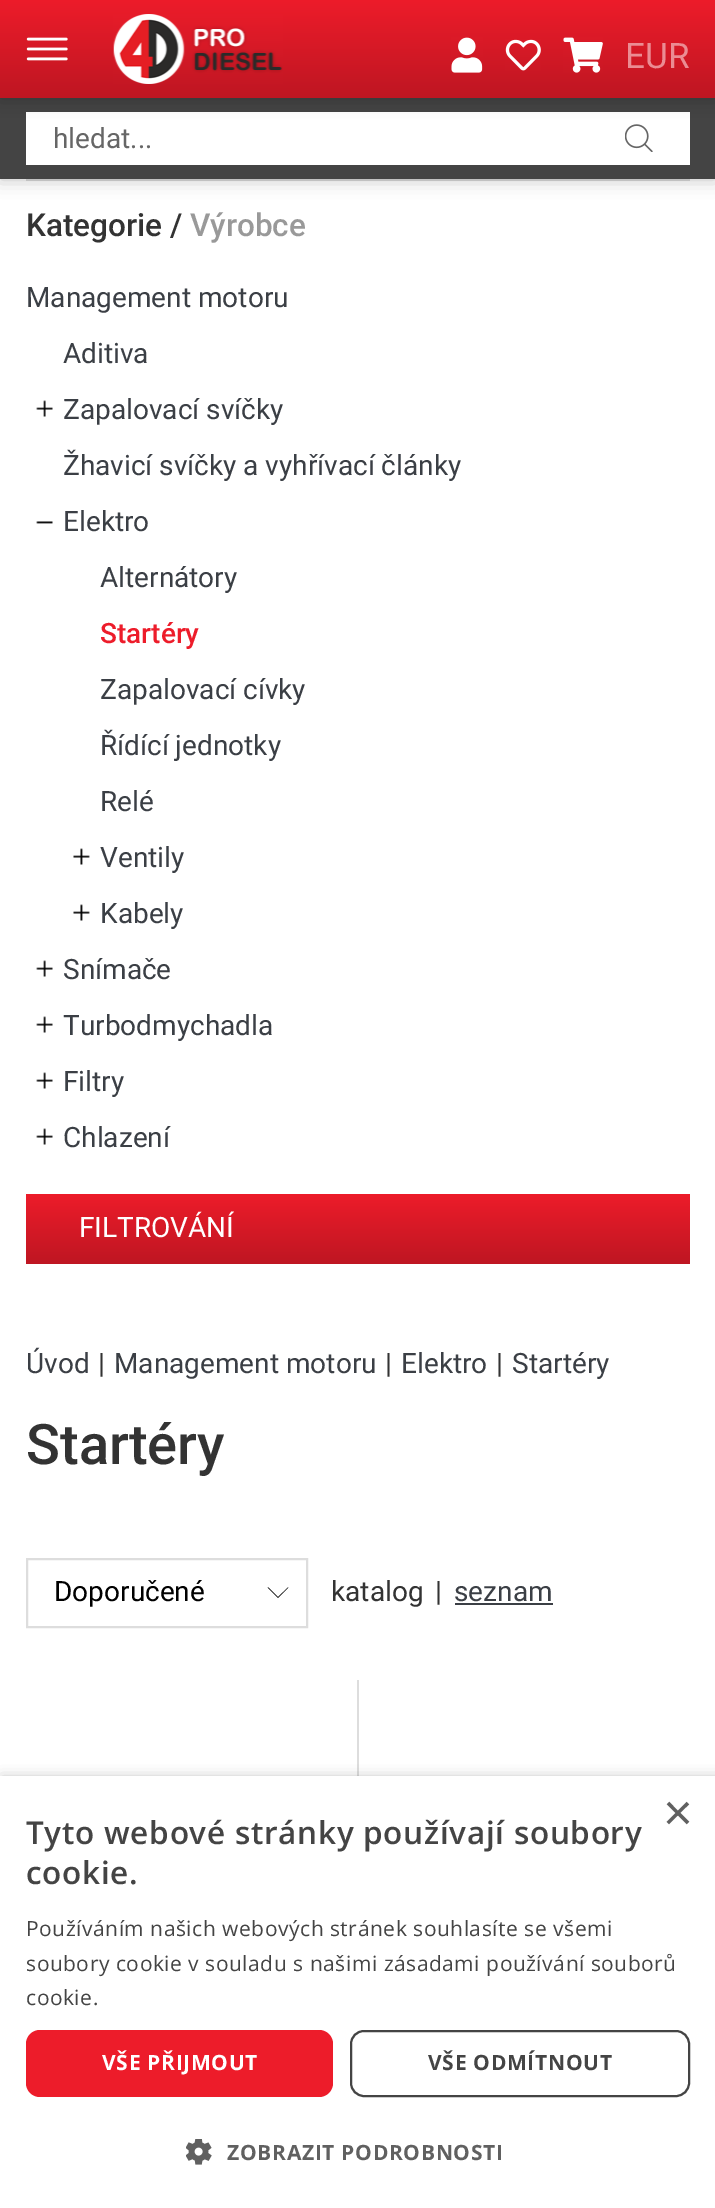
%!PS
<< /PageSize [715 2208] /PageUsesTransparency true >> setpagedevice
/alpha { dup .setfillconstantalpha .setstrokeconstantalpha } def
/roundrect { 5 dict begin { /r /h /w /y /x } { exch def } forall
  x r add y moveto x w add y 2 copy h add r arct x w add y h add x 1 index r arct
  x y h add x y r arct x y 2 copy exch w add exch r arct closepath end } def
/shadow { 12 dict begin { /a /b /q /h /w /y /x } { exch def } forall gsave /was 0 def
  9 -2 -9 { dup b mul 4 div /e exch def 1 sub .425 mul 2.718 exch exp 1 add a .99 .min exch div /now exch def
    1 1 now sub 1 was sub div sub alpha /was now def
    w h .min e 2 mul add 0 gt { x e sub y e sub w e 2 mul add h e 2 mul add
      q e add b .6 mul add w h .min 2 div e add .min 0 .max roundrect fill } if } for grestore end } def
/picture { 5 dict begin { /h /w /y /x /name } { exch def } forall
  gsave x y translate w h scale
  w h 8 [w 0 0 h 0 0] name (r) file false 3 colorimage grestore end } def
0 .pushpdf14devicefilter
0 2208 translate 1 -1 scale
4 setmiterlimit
1 setgray
0 0 715 2208 rectfill
0.867 setgray
26 179 664 2 rectfill
0 setgray
0 98 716 81 0 9 0.25 shadow
0.267 setgray
0 98 715 81 rectfill
1 setgray
26 112 664 53 rectfill
(img6.rgb) 625 124 28 28 picture
0 setgray
0 0 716 98 0 9 0.25 shadow
gsave newpath 0 0 moveto 715 0 lineto 715 98 lineto 0 98 lineto closepath clip newpath
<< /ShadingType 2 /ColorSpace /DeviceRGB /Coords [358 0 358 98] /Extend [true true] /Function << /FunctionType 2 /Domain [0 1] /C0 [0.929 0.11 0.165] /C1 [0.745 0.086 0.133] /N 1 >> >> shfill grestore
(img1.rgb) 26 37 42 24 picture
(img2.rgb) 113 14 170 70 picture
(img3.rgb) 451 37 32 36 picture
(img4.rgb) 505 39 36 32 picture
(img5.rgb) 563 37 40 36 picture
/Roboto-Regular [35 0 0 -35 0 0] selectfont
0.922 0.549 0.576 setrgbcolor
625 68 moveto (EUR) show
/Roboto-Regular [28 0 0 -28 0 0] selectfont
0.4 setgray
53 148 moveto (hledat...) show
/Roboto-Medium [31.5 0 0 -31.5 0 0] selectfont
0.2 setgray
26 236 moveto (Kategorie /) show
0.6 setgray
190 236 moveto (Výrobce) show
/Roboto-Regular [28 0 0 -28 0 0] selectfont
0.231 0.247 0.271 setrgbcolor
26 307 moveto (Management motoru) show
63 363 moveto (Aditiva) show
(img7.rgb) 36 400 17 17 picture
63 419 moveto (Zapalovací svíčky) show
63 475 moveto (Žhavicí svíčky a vyhřívací články) show
(img8.rgb) 36 521 17 3 picture
63 531 moveto (Elektro) show
100 587 moveto (Alternátory) show
/Roboto-Medium [28 0 0 -28 0 0] selectfont
0.929 0.11 0.165 setrgbcolor
100 643 moveto (Startéry) show
/Roboto-Regular [28 0 0 -28 0 0] selectfont
0.231 0.247 0.271 setrgbcolor
100 699 moveto (Zapalovací cívky) show
100 755 moveto (Řídící jednotky) show
100 811 moveto (Relé) show
(img9.rgb) 73 848 17 17 picture
100 867 moveto (Ventily) show
(img9.rgb) 73 904 17 17 picture
100 923 moveto (Kabely) show
(img7.rgb) 36 960 17 17 picture
63 979 moveto (Snímače) show
(img7.rgb) 36 1016 17 17 picture
63 1035 moveto (Turbodmychadla) show
(img7.rgb) 36 1072 17 17 picture
63 1091 moveto (Filtry) show
(img7.rgb) 36 1128 17 17 picture
63 1147 moveto (Chlazení) show
gsave newpath 26 1194 moveto 690 1194 lineto 690 1264 lineto 26 1264 lineto closepath clip newpath
<< /ShadingType 2 /ColorSpace /DeviceRGB /Coords [358 1194 358 1264] /Extend [true true] /Function << /FunctionType 2 /Domain [0 1] /C0 [0.929 0.11 0.165] /C1 [0.745 0.086 0.133] /N 1 >> >> shfill grestore
1 setgray
79 1237 moveto (FILTROVÁNÍ) show
0.231 0.247 0.271 setrgbcolor
26 1373 moveto (Úvod) show
0.2 setgray
98 1373 moveto (|) show
0.231 0.247 0.271 setrgbcolor
114 1373 moveto (Management motoru) show
0.2 setgray
385 1373 moveto (|) show
0.231 0.247 0.271 setrgbcolor
401 1373 moveto (Elektro) show
0.2 setgray
496 1373 moveto (|) show
0.231 0.247 0.271 setrgbcolor
512 1373 moveto (Startéry) show
/Roboto-Medium [56 0 0 -56 0 0] selectfont
0.2 setgray
26 1464 moveto (Startéry) show
0.004 setgray
newpath 268.5 1587.5 moveto 278 1597 lineto 288 1587.5 lineto 288.5 1587.5 lineto 278 1598 lineto 267.5 1587.5 lineto closepath fill
0.867 setgray
2 setlinewidth
27 1559 280 68 rectstroke
/Roboto-Regular [28 0 0 -28 0 0] selectfont
0 setgray
54 1601 moveto (Doporučené) show
0.2 setgray
331 1601 moveto (katalog) show
435 1601 moveto (|) show
0.231 0.247 0.271 setrgbcolor
454 1601 moveto (seznam) show
455 1603 98 2 rectfill
0.867 setgray
357 1680 2 96 rectfill
0 setgray
2 1780 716 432 0 7 0.35 shadow
1 setgray
0 1776 715 432 rectfill
/LiberationSans-Regular [51 0 0 -51 0 0] selectfont
0.376 setgray
663 1830 moveto (×) show
/OpenSans-SemiBold [31.5 0 0 -31.5 0 0] selectfont
0.267 setgray
26 1844 moveto 0.7 0 (Tyto webové stránky používají soubory) ashow
26 1884 moveto 0.7 0 (cookie.) ashow
/OpenSans-Regular [21 0 0 -21 0 0] selectfont
26 1936 moveto 0.53 0 (Používáním našich webových stránek souhlasíte se všemi) ashow
26 1971 moveto 0.53 0 (soubory cookie v souladu s našimi zásadami používání souborů) ashow
26 2005 moveto 0.53 0 (cookie.) ashow
0.929 0.11 0.165 setrgbcolor
26 2030 307 67 14 roundrect fill
/OpenSans-Bold [21 0 0 -21 0 0] selectfont
1 setgray
102 2070 moveto 0.7 0 (VŠE PŘIJMOUT) ashow
0.267 setgray
351 2031 338 65 13 roundrect stroke
428 2070 moveto 0.7 0 (VŠE ODMÍTNOUT) ashow
(img10.rgb) 186 2139 26 26 picture
0.376 setgray
227 2160 moveto 0.7 0 (ZOBRAZIT PODROBNOSTI) ashow
.poppdf14devicefilter showpage
